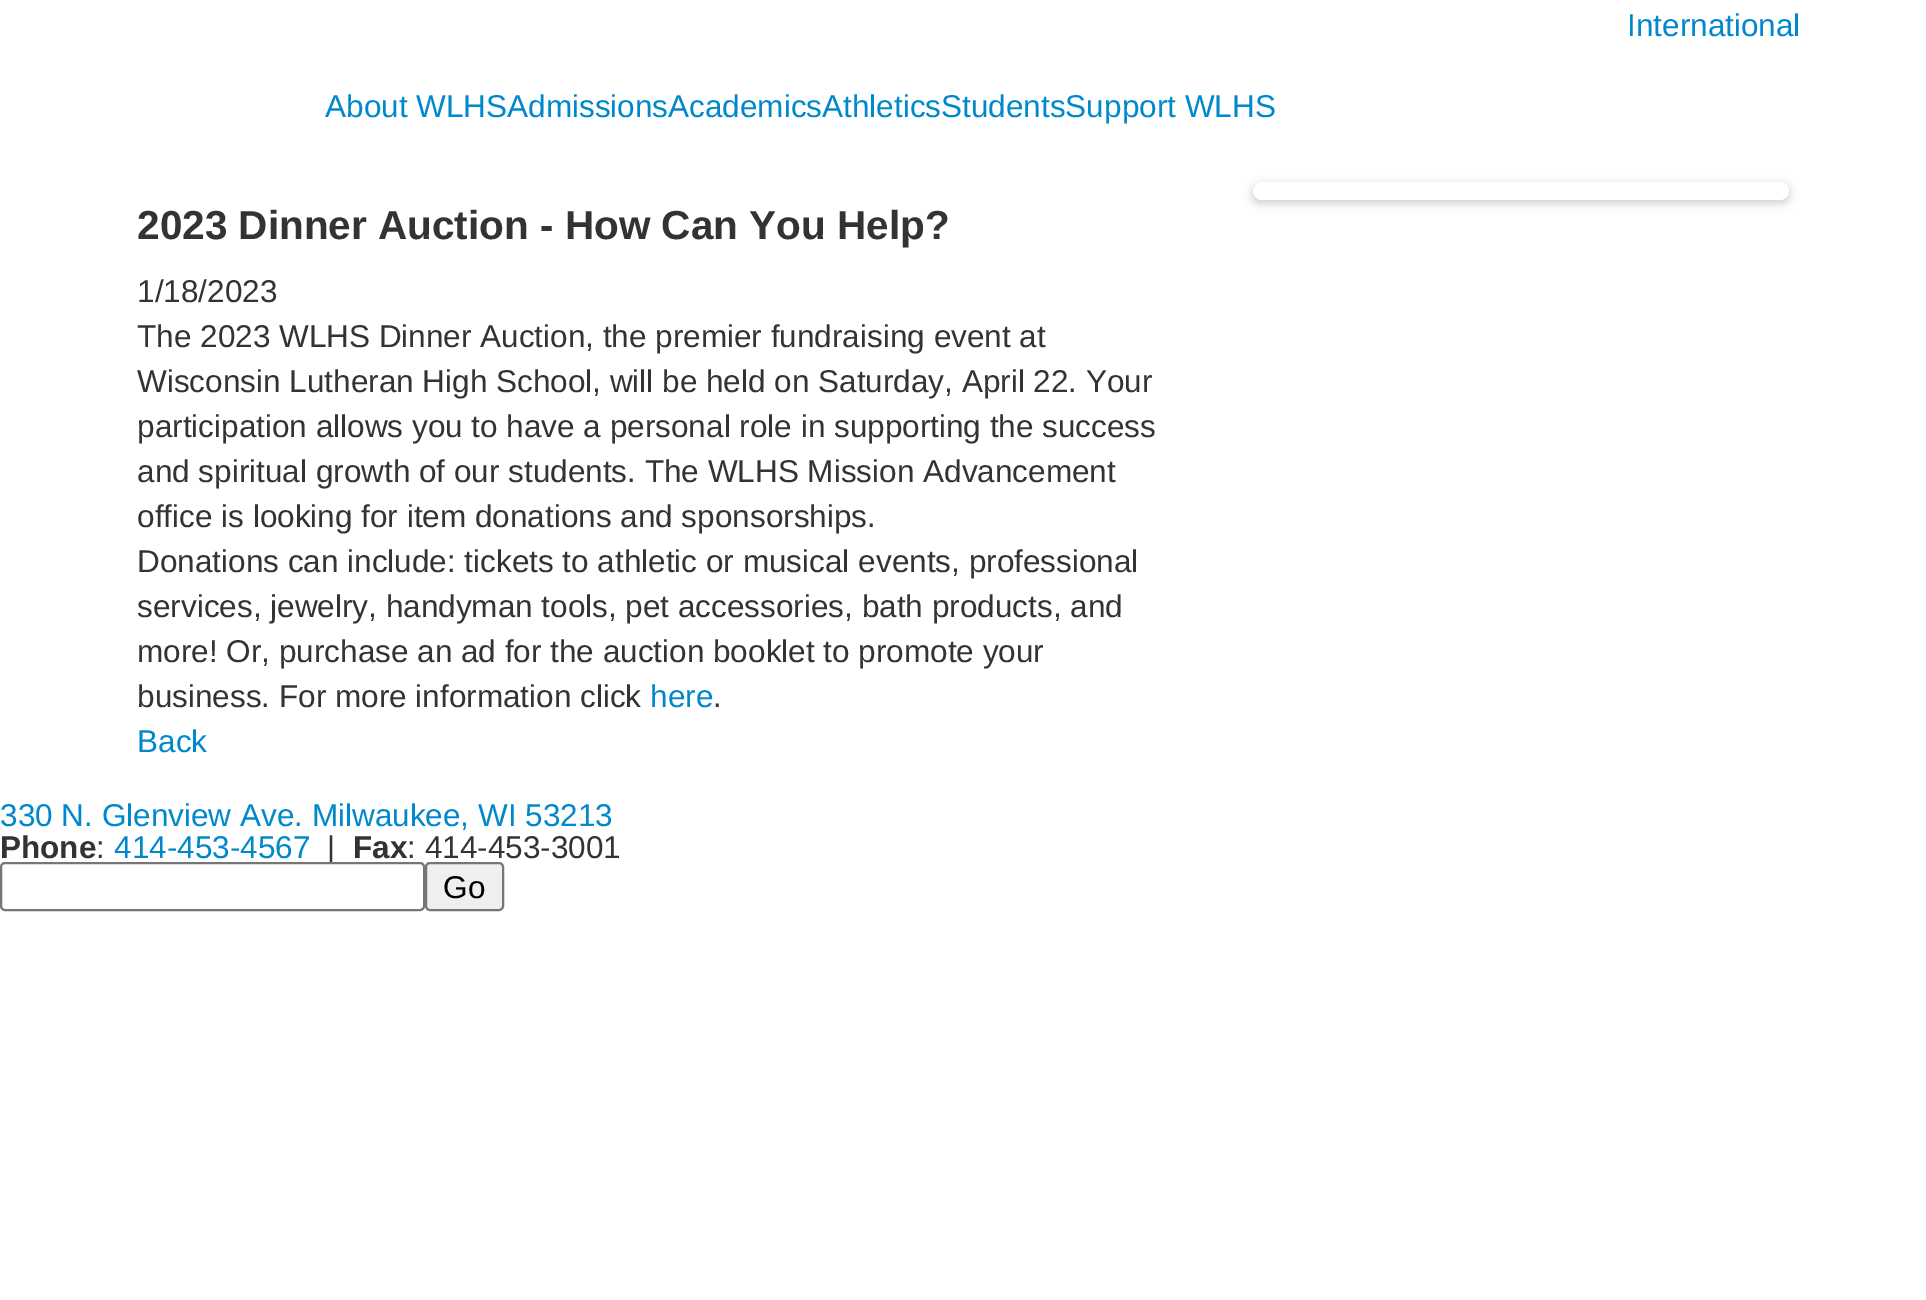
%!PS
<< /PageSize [1926 1300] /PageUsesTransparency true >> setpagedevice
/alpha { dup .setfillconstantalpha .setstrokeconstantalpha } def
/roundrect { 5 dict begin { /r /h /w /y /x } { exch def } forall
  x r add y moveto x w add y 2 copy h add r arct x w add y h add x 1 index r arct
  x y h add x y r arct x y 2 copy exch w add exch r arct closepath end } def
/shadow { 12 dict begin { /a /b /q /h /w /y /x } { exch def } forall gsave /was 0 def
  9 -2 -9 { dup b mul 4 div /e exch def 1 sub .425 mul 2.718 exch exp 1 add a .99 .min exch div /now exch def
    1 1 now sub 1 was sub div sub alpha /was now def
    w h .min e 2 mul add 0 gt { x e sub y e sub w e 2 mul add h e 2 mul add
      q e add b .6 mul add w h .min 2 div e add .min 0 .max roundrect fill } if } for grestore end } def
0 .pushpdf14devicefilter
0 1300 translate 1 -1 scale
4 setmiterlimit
1 setgray
0 0 1926 1300 rectfill
/LiberationSans-Regular [31.5 0 0 -31.5 0 0] selectfont
0 0.533 0.8 setrgbcolor
1627 36 moveto (International) show
325 117 moveto (About WLHSAdmissionsAcademicsAthleticsStudentsSupport WLHS) show
0 setgray
1253 185 536 18 9 4.5 0.2 shadow
1 setgray
1253 182 536 18 9 roundrect fill
/LiberationSans-Bold [40.5 0 0 -40.5 0 0] selectfont
0.2 setgray
137 239 moveto (2023 Dinner Auction - How Can You Help?) show
/LiberationSans-Regular [31.5 0 0 -31.5 0 0] selectfont
137 302 moveto (1/18/2023) show
137 347 moveto (The 2023 WLHS Dinner Auction, the premier fundraising event at) show
137 392 moveto (Wisconsin Lutheran High School, will be held on Saturday, April 22. Your) show
137 437 moveto (participation allows you to have a personal role in supporting the success) show
137 482 moveto (and spiritual growth of our students. The WLHS Mission Advancement) show
137 527 moveto (office is looking for item donations and sponsorships.) show
137 572 moveto (Donations can include: tickets to athletic or musical events, professional) show
137 617 moveto (services, jewelry, handyman tools, pet accessories, bath products, and) show
137 662 moveto (more! Or, purchase an ad for the auction booklet to promote your) show
137 707 moveto (business. For more information click) show
0 0.533 0.8 setrgbcolor
650 707 moveto (here) show
0.2 setgray
713 707 moveto (.) show
0 0.533 0.8 setrgbcolor
137 752 moveto (Back) show
0 826 moveto (330 N. Glenview Ave. Milwaukee, WI 53213) show
/LiberationSans-Bold [31.5 0 0 -31.5 0 0] selectfont
0.2 setgray
0 858 moveto (Phone) show
/LiberationSans-Regular [31.5 0 0 -31.5 0 0] selectfont
96 858 moveto (:) show
0 0.533 0.8 setrgbcolor
114 858 moveto (414-453-4567) show
0.2 setgray
327 858 moveto (|) show
/LiberationSans-Bold [31.5 0 0 -31.5 0 0] selectfont
353 858 moveto (Fax) show
/LiberationSans-Regular [31.5 0 0 -31.5 0 0] selectfont
407 858 moveto (: 414-453-3001) show
1 setgray
1 863 423 47 4 roundrect gsave fill grestore
0.463 setgray
2 setlinewidth
stroke
0.937 setgray
426 863 77 47 4 roundrect gsave fill grestore
0.463 setgray
stroke
0 setgray
443 898 moveto (Go) show
.poppdf14devicefilter showpage
